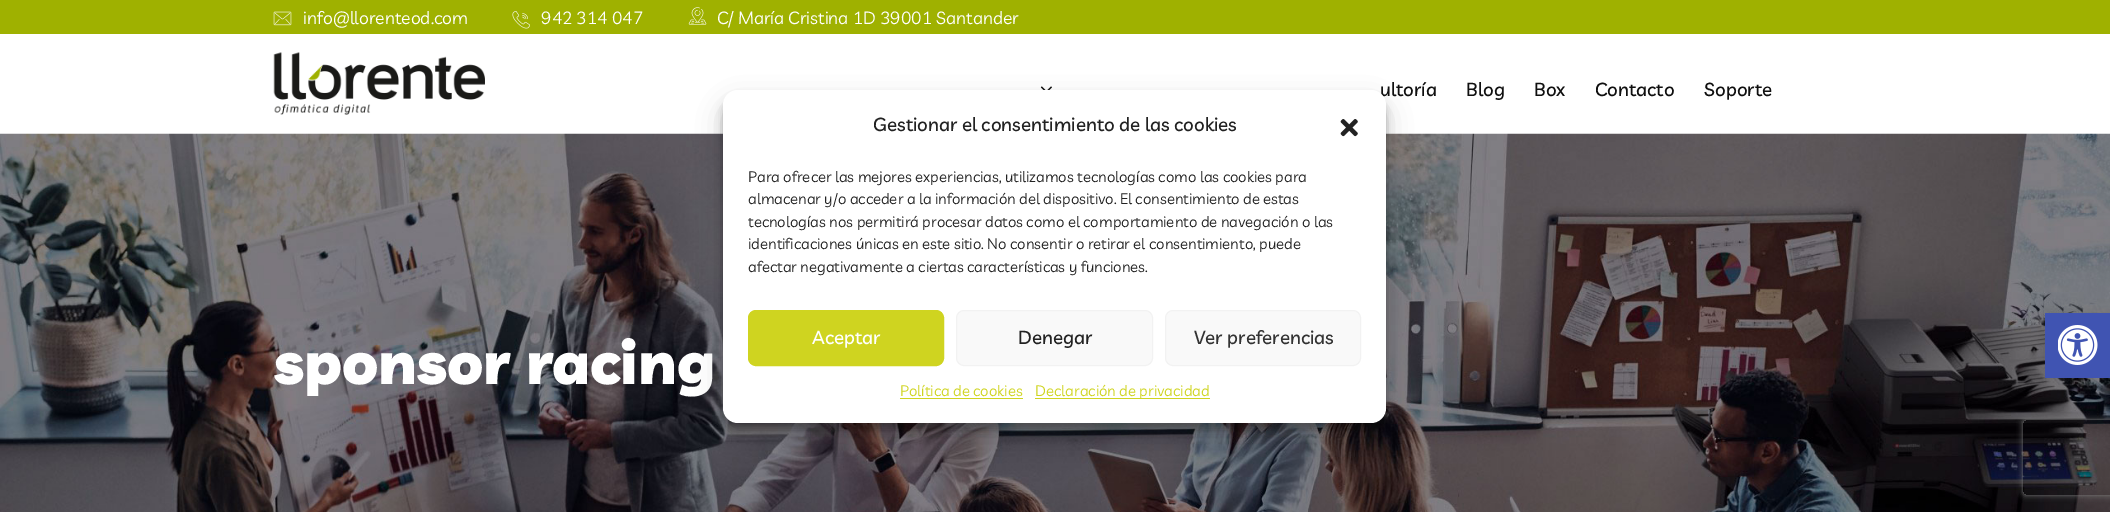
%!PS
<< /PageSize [2110 512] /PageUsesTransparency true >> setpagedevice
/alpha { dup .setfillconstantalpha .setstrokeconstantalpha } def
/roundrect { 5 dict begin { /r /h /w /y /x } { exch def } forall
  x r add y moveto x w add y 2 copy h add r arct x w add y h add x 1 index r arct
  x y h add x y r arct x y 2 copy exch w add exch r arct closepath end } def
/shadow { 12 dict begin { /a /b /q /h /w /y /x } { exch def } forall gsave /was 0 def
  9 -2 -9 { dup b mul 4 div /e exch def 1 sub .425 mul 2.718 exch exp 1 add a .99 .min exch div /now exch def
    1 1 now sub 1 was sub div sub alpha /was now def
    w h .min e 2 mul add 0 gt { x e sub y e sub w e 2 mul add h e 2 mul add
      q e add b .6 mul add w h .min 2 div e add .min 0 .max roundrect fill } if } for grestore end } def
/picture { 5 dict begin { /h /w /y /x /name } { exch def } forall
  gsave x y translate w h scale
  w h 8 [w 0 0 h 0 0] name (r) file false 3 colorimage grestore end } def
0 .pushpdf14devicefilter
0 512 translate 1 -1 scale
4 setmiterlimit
1 setgray
0 0 2110 512 rectfill
0.624 0.694 0 setrgbcolor
0 0 2110 34 rectfill
(img1.rgb) 273 11 19 15 picture
/Livvic-Regular [17.5 0 0 -17.5 0 0] selectfont
1 setgray
303 24 moveto (info@llorenteod.com) show
(img2.rgb) 512 11 18 18 picture
541 24 moveto (942 314 047) show
(img3.rgb) 688 7 19 18 picture
717 24 moveto (C/ María Cristina 1D 39001 Santander) show
(img4.rgb) 273 52 212 63 picture
(img5.rgb) 1040 86 12 4 picture
/Livvic-Medium [18.75 0 0 -18.75 0 0] selectfont
0.063 setgray
1380 96 moveto (ultoría) show
1466 96 moveto (Blog) show
1534 96 moveto (Box) show
1595 96 moveto (Contacto) show
1704 96 moveto (Soporte) show
(img6.rgb) 0 133 2110 379 picture
/Livvic-Black [60 0 0 -60 0 0] selectfont
1 setgray
274 384 moveto (sponsor racing) show
0 setgray
723 98 663 332 15 4 0.23 shadow
723 103 663 332 15 12.5 0.19 shadow
1 setgray
723 90 663 333 15 roundrect fill
/Livvic-Medium [18.75 0 0 -18.75 0 0] selectfont
0.133 setgray
873 131 moveto (Gestionar el consentimiento de las cookies) show
(img7.rgb) 1340 119 18 18 picture
/Livvic-Regular [15 0 0 -15 0 0] selectfont
748 182 moveto (Para ofrecer las mejores experiencias, utilizamos tecnologías como las cookies para) show
748 204 moveto (almacenar y/o acceder a la información del dispositivo. El consentimiento de estas) show
748 227 moveto (tecnologías nos permitirá procesar datos como el comportamiento de navegación o las) show
748 249 moveto (identificaciones únicas en este sitio. No consentir o retirar el consentimiento, puede) show
748 272 moveto (afectar negativamente a ciertas características y funciones.) show
0.812 0.831 0.125 setrgbcolor
748.5 310.5 195 55 7.5 roundrect gsave fill grestore
stroke
/Livvic-Medium [18.75 0 0 -18.75 0 0] selectfont
1 setgray
812 344 moveto (Aceptar) show
0.976 setgray
956.5 310.5 196 55 7.5 roundrect gsave fill grestore
0.949 setgray
stroke
0.133 setgray
1018 344 moveto (Denegar) show
0.976 setgray
1165.5 310.5 195 55 7.5 roundrect gsave fill grestore
0.949 setgray
stroke
0.2 setgray
1194 344 moveto (Ver preferencias) show
/Livvic-Regular [15 0 0 -15 0 0] selectfont
0.812 0.831 0.125 setrgbcolor
900 396 moveto (Política de cookies) show
900 398 123 1 rectfill
1035 398 175 1 rectfill
1035 396 moveto (Declaración de privacidad) show
0 setgray
2045 313 65 65 0 6 0.1 shadow
0.251 0.329 0.698 setrgbcolor
2045 313 65 65 rectfill
(img8.rgb) 2058 325 40 40 picture
gsave
newpath 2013 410 moveto 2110 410 lineto 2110 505 lineto 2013 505 lineto closepath 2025.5 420 moveto 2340.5 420 lineto 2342 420 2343 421 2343 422.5 curveto 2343 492.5 lineto 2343 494 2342 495 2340.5 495 curveto 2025.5 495 lineto 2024 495 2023 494 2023 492.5 curveto 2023 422.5 lineto 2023 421 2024 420 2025.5 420 curveto closepath eoclip newpath
0.502 setgray
2023 420 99 75 2.5 3 1 shadow
grestore
.poppdf14devicefilter showpage
